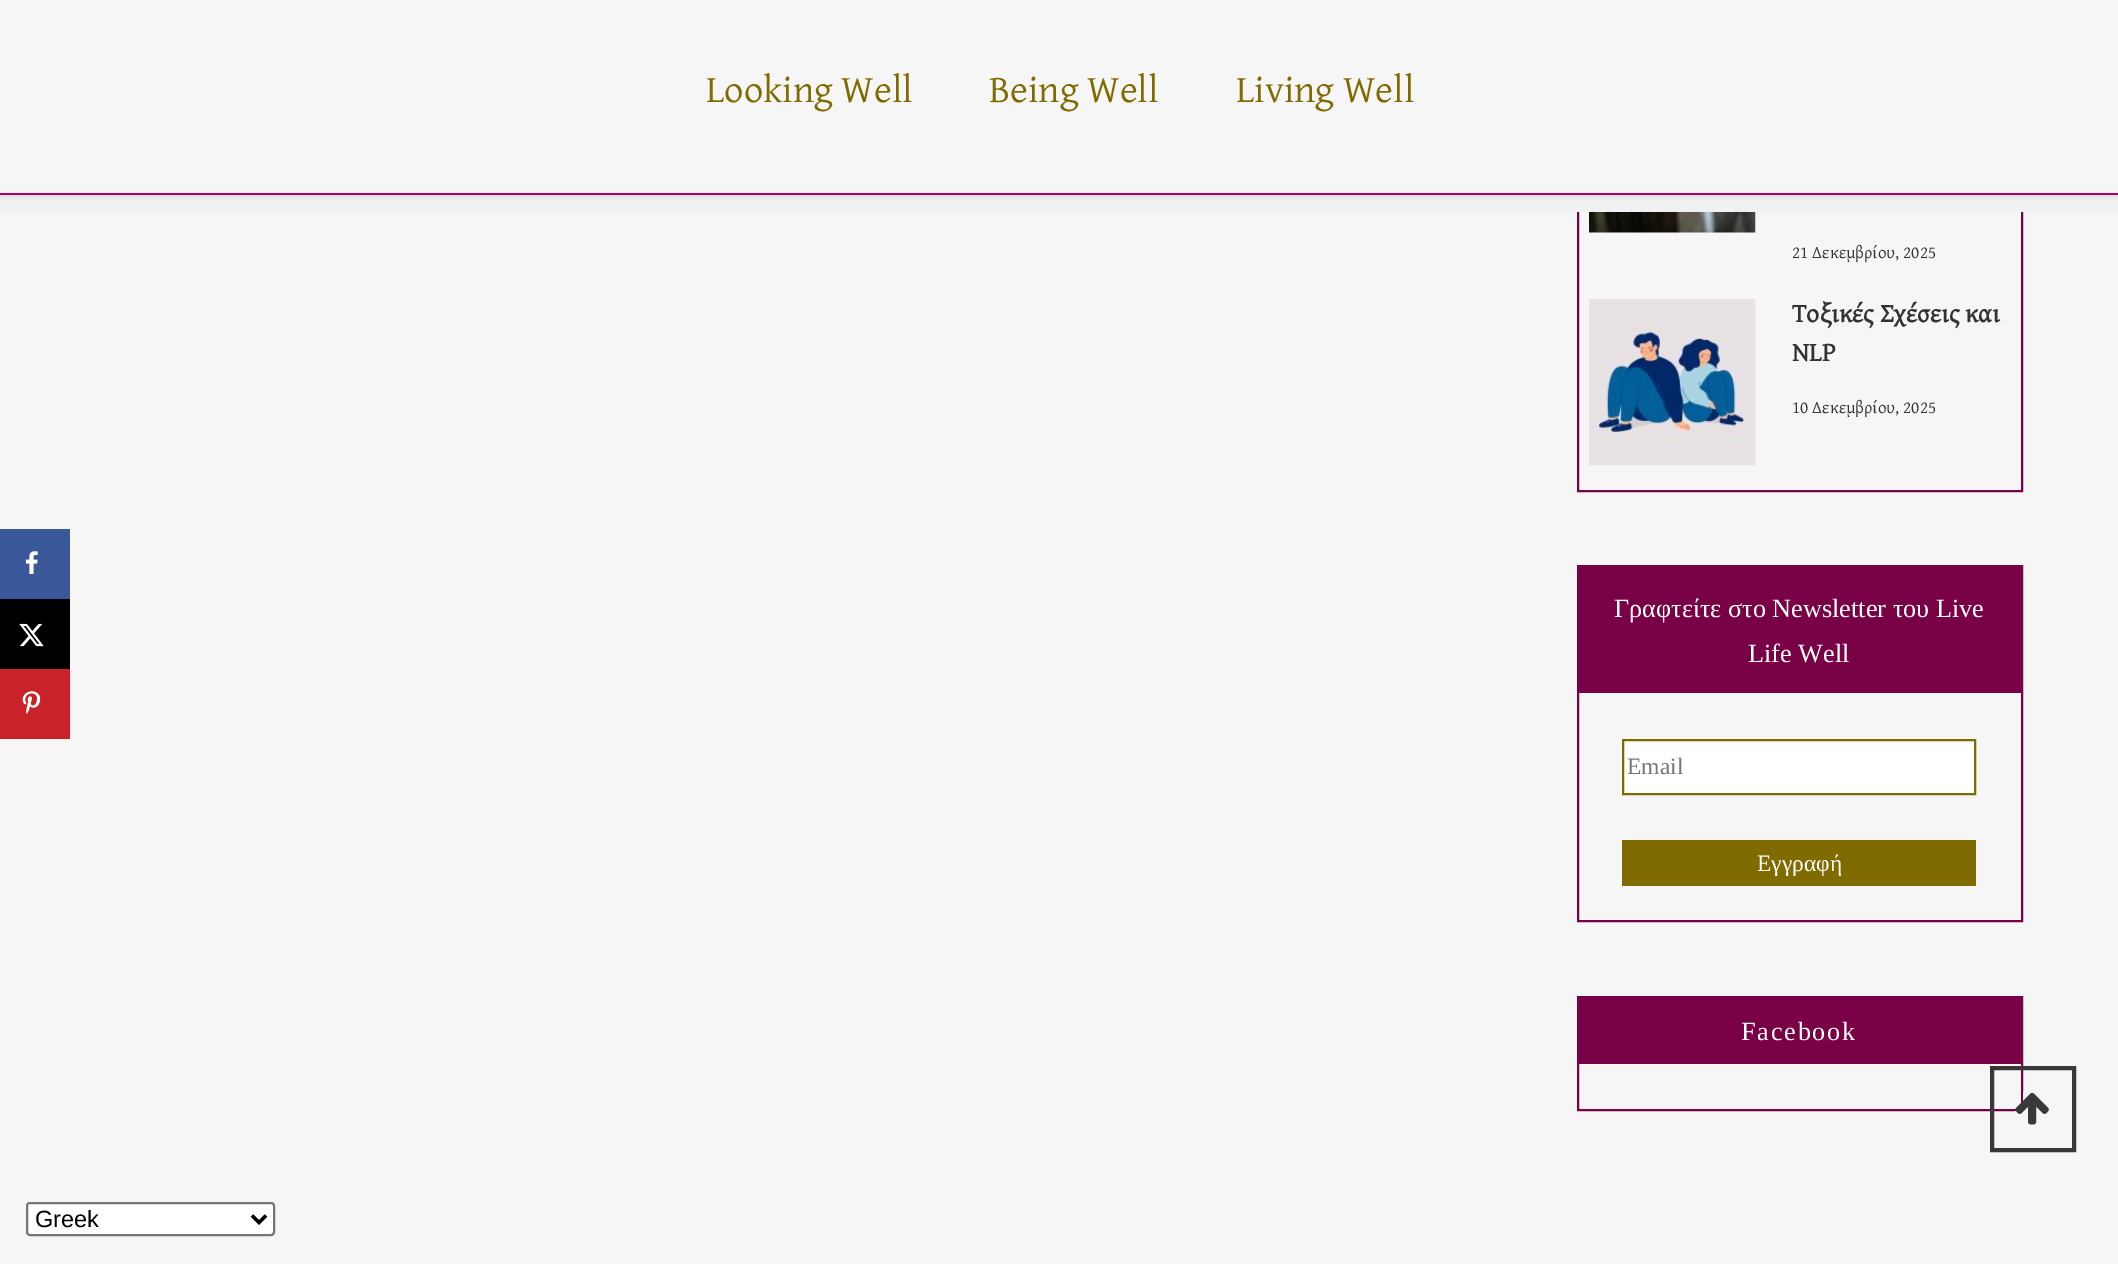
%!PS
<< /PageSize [2118 1264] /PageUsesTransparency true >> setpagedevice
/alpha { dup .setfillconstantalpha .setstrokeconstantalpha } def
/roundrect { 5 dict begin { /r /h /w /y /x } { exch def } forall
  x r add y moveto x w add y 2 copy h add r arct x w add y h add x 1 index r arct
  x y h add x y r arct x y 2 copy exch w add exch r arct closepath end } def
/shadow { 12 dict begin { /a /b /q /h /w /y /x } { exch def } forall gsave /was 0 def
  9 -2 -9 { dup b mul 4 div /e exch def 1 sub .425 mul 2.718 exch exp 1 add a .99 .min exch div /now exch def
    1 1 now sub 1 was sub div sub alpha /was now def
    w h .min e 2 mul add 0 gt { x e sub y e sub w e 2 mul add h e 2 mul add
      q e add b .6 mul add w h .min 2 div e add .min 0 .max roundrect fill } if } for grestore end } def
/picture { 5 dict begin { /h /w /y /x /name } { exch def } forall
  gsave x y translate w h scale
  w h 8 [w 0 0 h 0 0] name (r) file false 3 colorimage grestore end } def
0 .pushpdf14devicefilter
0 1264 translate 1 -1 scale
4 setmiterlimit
0.965 setgray
0 0 2118 1264 rectfill
0.227 0.341 0.604 setrgbcolor
0 529 70 70 rectfill
(img1.rgb) 25 551 13 23 picture
0 setgray
0 599 70 70 rectfill
(img2.rgb) 19 623 25 24 picture
0.788 0.133 0.157 setrgbcolor
0 669 70 70 rectfill
(img3.rgb) 22 691 19 23 picture
0.475 0.004 0.271 setrgbcolor
2 setlinewidth
1578 -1 444 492 rectstroke
0.945 setgray
0 195 2118 17 rectfill
0 setgray
0 2 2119 194 0 2.5 0.11 shadow
0.965 setgray
0 0 2118 193 rectfill
0.69 0 0.396 setrgbcolor
0 193 2118 2 rectfill
/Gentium-Regular [38.5 0 0 -38.5 0 0] selectfont
0.498 0.42 0 setrgbcolor
706 102 moveto (Looking Well) show
989 102 moveto (Being Well) show
1236 102 moveto (Living Well) show
(img4.rgb) 1589 212 167 21 picture
/Gentium-Regular [17.5 0 0 -17.5 0 0] selectfont
0.2 setgray
1792 258 moveto (21 Δεκεμβρίου, 2025) show
(img5.rgb) 1589 299 167 167 picture
/Gentium-Bold [26.25 0 0 -26.25 0 0] selectfont
1792 322 moveto (Τοξικές Σχέσεις και) show
1792 361 moveto (NLP) show
/Gentium-Regular [17.5 0 0 -17.5 0 0] selectfont
1792 413 moveto (10 Δεκεμβρίου, 2025) show
0.475 0.004 0.271 setrgbcolor
1578 566 444 355 rectstroke
1579 567 442 126 rectfill
/LiberationSerif-Regular [26.25 0 0 -26.25 0 0] selectfont
1 setgray
1614 617 moveto (Γραφτείτε στο Newsletter του Live) show
1748 662 moveto (Life Well) show
newpath 1623 740 moveto 1975 740 lineto 1975 794 lineto 1623 794 lineto closepath gsave fill grestore
0.498 0.42 0 setrgbcolor
stroke
/LiberationSerif-Regular [23.5 0 0 -23.5 0 0] selectfont
0.459 setgray
1627 774 moveto (Email) show
0.498 0.42 0 setrgbcolor
1622 840 354 46 rectfill
1 setgray
1757 871 moveto (Εγγραφή) show
0.475 0.004 0.271 setrgbcolor
1578 997 444 113 rectstroke
1579 998 442 66 rectfill
/LiberationSerif-Regular [26.25 0 0 -26.25 0 0] selectfont
1 setgray
1741 1040 moveto 1.75 0 (Facebook) ashow
0.224 setgray
4 setlinewidth
1992 1068 82 82 rectstroke
(img6.rgb) 2015 1092 34 33 picture
1 setgray
27 1203 247 32 3 roundrect gsave fill grestore
0.463 setgray
2 setlinewidth
stroke
0 setgray
3.5 setlinewidth
newpath 252 1215.5 moveto 259 1222.5 lineto 266 1215.5 lineto stroke
/LiberationSans-Regular [23.5 0 0 -23.5 0 0] selectfont
35 1227 moveto (Greek) show
.poppdf14devicefilter showpage
